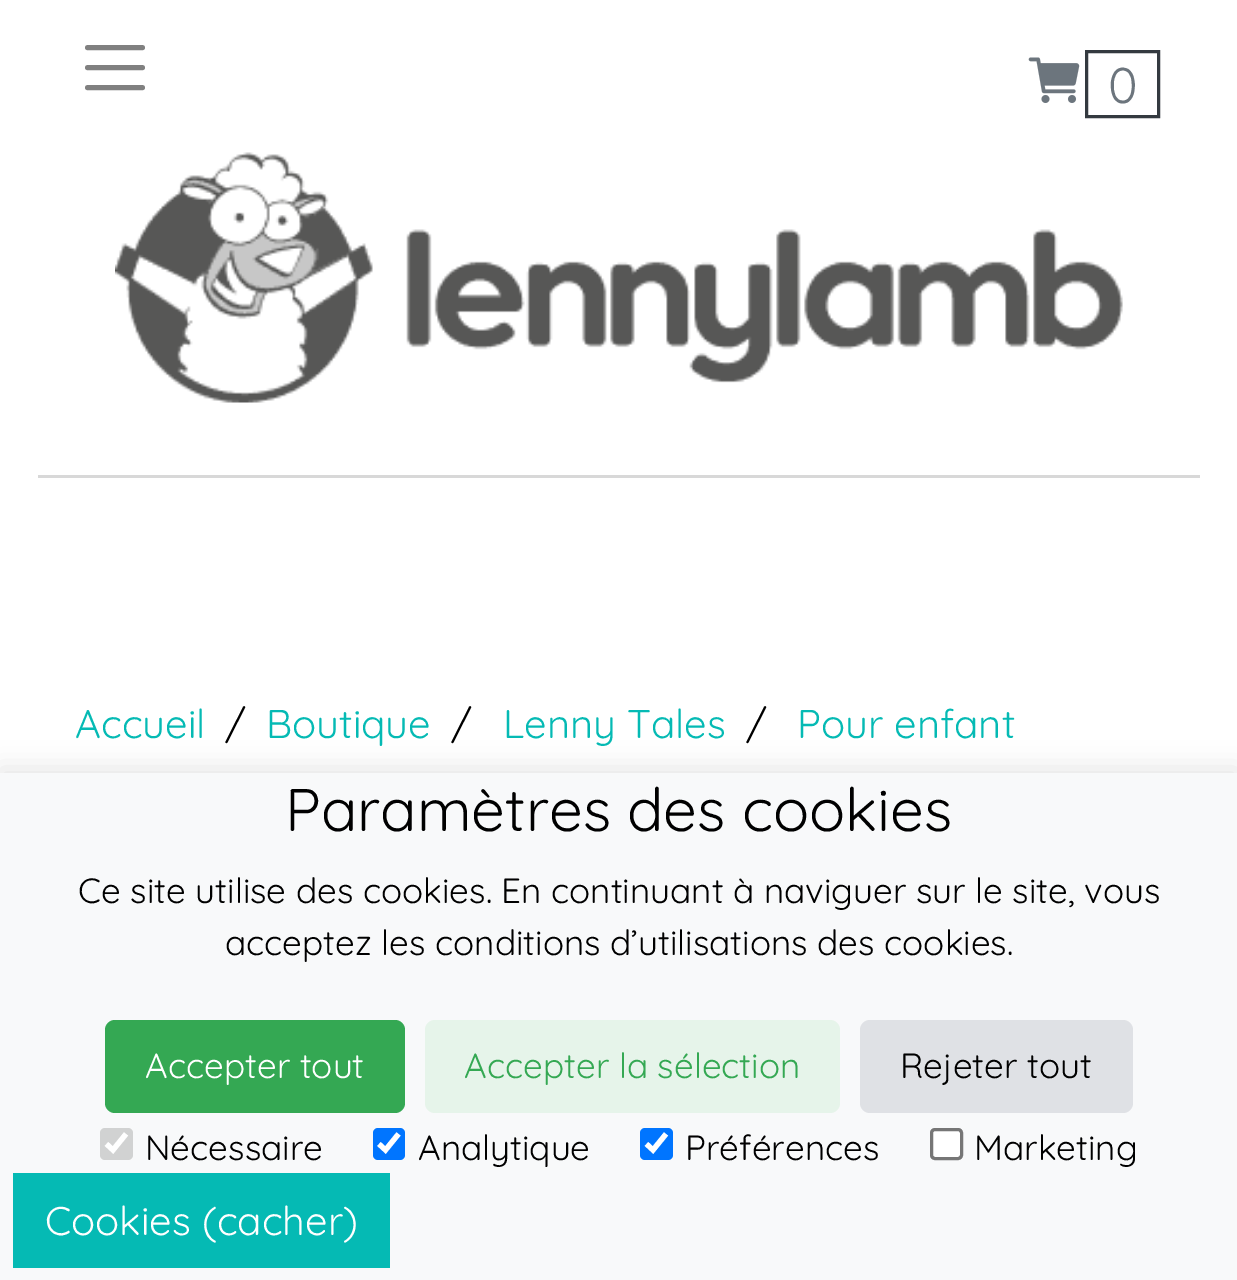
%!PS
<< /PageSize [1237 1280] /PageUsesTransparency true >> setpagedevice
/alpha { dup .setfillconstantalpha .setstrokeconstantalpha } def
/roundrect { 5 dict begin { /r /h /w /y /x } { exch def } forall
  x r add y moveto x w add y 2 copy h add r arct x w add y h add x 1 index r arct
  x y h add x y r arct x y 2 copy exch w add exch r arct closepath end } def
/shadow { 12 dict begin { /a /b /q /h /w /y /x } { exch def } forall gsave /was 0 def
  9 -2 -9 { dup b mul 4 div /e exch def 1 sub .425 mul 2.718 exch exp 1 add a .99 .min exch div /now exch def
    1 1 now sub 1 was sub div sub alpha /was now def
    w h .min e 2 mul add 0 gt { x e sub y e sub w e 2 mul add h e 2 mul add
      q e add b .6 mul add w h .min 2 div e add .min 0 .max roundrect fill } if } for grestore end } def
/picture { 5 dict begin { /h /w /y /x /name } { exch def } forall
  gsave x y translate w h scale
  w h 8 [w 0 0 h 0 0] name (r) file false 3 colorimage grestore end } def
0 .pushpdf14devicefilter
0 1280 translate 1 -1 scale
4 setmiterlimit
1 setgray
0 0 1237 1280 rectfill
0.847 setgray
38 475 1162 3 rectfill
0.502 setgray
5 setlinewidth
1 setlinecap
newpath 87.5 47.5 moveto 142.5 47.5 lineto 87.5 67.5 moveto 142.5 67.5 lineto 87.5 87.5 moveto 142.5 87.5 lineto stroke
(img1.rgb) 1028 57 52 46 picture
0.204 0.227 0.251 setrgbcolor
3 setlinewidth
0 setlinecap
1086.5 51.5 72 65 rectstroke
/Quicksand-Regular [50 0 0 -50 0 0] selectfont
0.424 0.459 0.49 setrgbcolor
1108 103 moveto (0) show
(img2.rgb) 115 152 1008 251 picture
/Quicksand-Regular [40 0 0 -40 0 0] selectfont
0.02 0.729 0.706 setrgbcolor
75 738 moveto (Accueil) show
0 setgray
225 738 moveto (/) show
0.02 0.729 0.706 setrgbcolor
266 738 moveto (Boutique) show
0 setgray
451 738 moveto (/) show
0.02 0.729 0.706 setrgbcolor
503 738 moveto (Lenny Tales) show
0 setgray
746 738 moveto (/) show
0.02 0.729 0.706 setrgbcolor
797 738 moveto (Pour enfant) show
0 setgray
0 768 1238 507 0 12.5 0.1 shadow
0.973 0.976 0.98 setrgbcolor
0 773 1237 507 rectfill
/Quicksand-Regular [60 0 0 -60 0 0] selectfont
0 setgray
285 831 moveto (Paramètres des cookies) show
/Quicksand-Regular [35 0 0 -35 0 0] selectfont
78 903 moveto (Ce site utilise des cookies. En continuant à naviguer sur le site, vous) show
225 955 moveto (acceptez les conditions d’utilisations des cookies.) show
0.204 0.659 0.325 setrgbcolor
105 1020 300 93 10 roundrect fill
1 setgray
145 1078 moveto (Accepter tout) show
0.902 0.957 0.918 setrgbcolor
425 1020 415 93 10 roundrect fill
0.204 0.659 0.325 setrgbcolor
464 1078 moveto (Accepter la sélection) show
0.875 0.882 0.898 setrgbcolor
860 1020 273 93 10 roundrect fill
0 setgray
900 1078 moveto (Rejeter tout) show
0.82 0.824 0.824 setrgbcolor
100 1128 33 32 5 roundrect fill
1 setgray
5.2 setlinewidth
newpath 106.5 1144 moveto 113 1150 lineto 126 1134 lineto stroke
0 setgray
145 1160 moveto (Nécessaire) show
0 0.459 1 setrgbcolor
373 1128 32 32 5 roundrect fill
1 setgray
newpath 379 1144 moveto 385.5 1150 lineto 398.5 1134 lineto stroke
0 setgray
418 1160 moveto (Analytique) show
0 0.459 1 setrgbcolor
640 1128 33 32 5 roundrect fill
1 setgray
newpath 646.5 1144 moveto 653 1150 lineto 666 1134 lineto stroke
0 setgray
685 1160 moveto (Préférences) show
1 setgray
931.5 1129.5 30 29 3.5 roundrect gsave fill grestore
0.463 setgray
3 setlinewidth
stroke
0 setgray
974 1160 moveto (Marketing) show
0.02 0.729 0.706 setrgbcolor
13 1173 377 95 rectfill
/Quicksand-Regular [40 0 0 -40 0 0] selectfont
1 setgray
45 1235 moveto (Cookies \(cacher\)) show
.poppdf14devicefilter showpage
